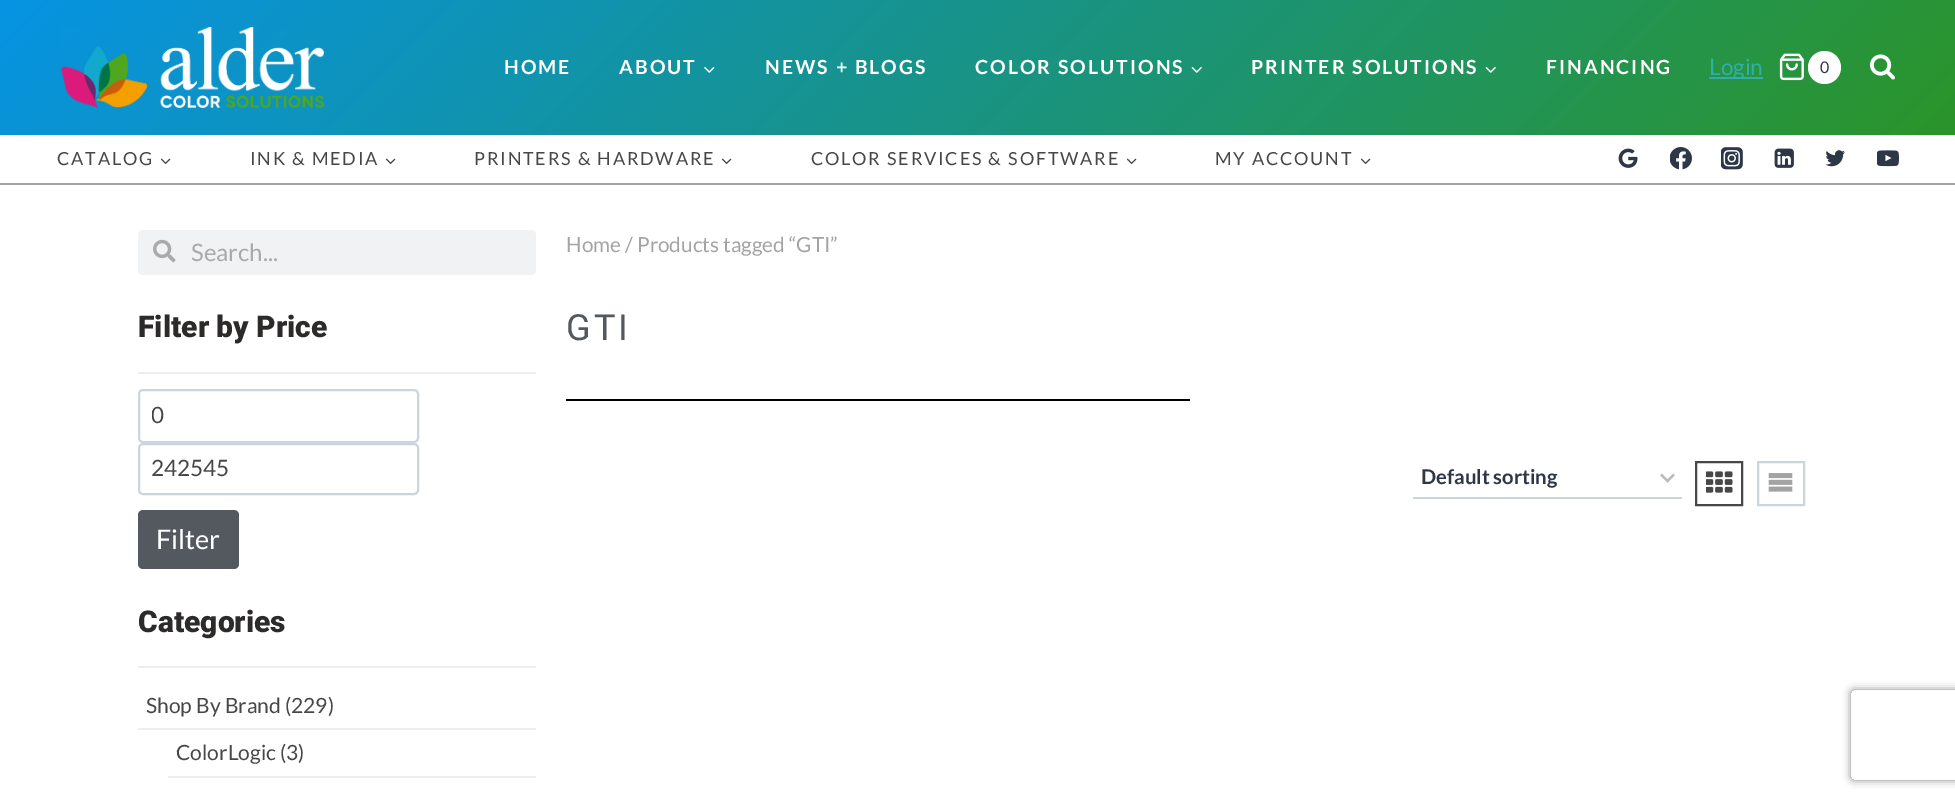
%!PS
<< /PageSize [1955 801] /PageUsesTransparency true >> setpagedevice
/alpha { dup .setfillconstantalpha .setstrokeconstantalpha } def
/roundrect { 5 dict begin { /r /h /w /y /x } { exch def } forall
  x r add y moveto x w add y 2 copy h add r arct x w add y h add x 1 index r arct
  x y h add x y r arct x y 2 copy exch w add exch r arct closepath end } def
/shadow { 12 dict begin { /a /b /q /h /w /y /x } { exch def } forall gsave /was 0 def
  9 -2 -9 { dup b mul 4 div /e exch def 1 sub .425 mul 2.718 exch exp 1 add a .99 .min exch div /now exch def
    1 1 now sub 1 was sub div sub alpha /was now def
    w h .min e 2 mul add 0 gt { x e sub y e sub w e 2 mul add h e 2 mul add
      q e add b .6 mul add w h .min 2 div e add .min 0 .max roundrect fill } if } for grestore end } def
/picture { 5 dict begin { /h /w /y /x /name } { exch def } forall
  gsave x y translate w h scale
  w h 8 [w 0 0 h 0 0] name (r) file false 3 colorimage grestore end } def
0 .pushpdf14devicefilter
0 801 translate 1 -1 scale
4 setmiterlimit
1 setgray
0 0 1955 801 rectfill
gsave newpath 0 0 moveto 1955 0 lineto 1955 135 lineto 0 135 lineto closepath clip newpath
<< /ShadingType 2 /ColorSpace /DeviceRGB /Coords [443 -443 1513 627] /Extend [true true] /Function << /FunctionType 2 /Domain [0 1] /C0 [0.024 0.576 0.89] /C1 [0.173 0.58 0.145] /N 1 >> >> shfill grestore
(img1.rgb) 61 27 263 81 picture
/Lato-Bold [19.5 0 0 -19.5 0 0] selectfont
504 74 moveto 2 0 (HOME) ashow
619 74 moveto 2 0 (ABOUT) ashow
(img2.rgb) 704 67 11 6 picture
765 74 moveto 2 0 (NEWS + BLOGS) ashow
975 74 moveto 2 0 (COLOR SOLUTIONS) ashow
(img3.rgb) 1191 67 11 6 picture
1251 74 moveto 2 0 (PRINTER SOLUTIONS) ashow
(img4.rgb) 1485 67 11 6 picture
1546 74 moveto 2 0 (FINANCING) ashow
0.188 0.686 0.663 setrgbcolor
1709 77 54 2 rectfill
/Lato-Regular [22.5 0 0 -22.5 0 0] selectfont
1709 75 moveto (Login) show
(img5.rgb) 1779 53 25 28 picture
1 setgray
newpath 1824.5 67.5 16.5 0 360 arc closepath fill
/Lato-Regular [16 0 0 -16 0 0] selectfont
0.176 0.216 0.282 setrgbcolor
1820 73 moveto (0) show
(img6.rgb) 1870 54 25 26 picture
0.639 setgray
0 183 1955 2 rectfill
/Lato-Regular [18 0 0 -18 0 0] selectfont
0.278 setgray
57 165 moveto 1.8 0 (CATALOG) ashow
(img7.rgb) 160 158 11 6 picture
250 165 moveto 1.8 0 (INK & MEDIA) ashow
(img7.rgb) 385 158 11 6 picture
474 165 moveto 1.8 0 (PRINTERS & HARDWARE) ashow
(img7.rgb) 721 158 11 6 picture
811 165 moveto 1.8 0 (COLOR SERVICES & SOFTWARE) ashow
(img7.rgb) 1126 158 11 6 picture
1215 165 moveto 1.8 0 (MY ACCOUNT) ashow
(img7.rgb) 1360 158 11 6 picture
(img8.rgb) 1618 148 20 20 picture
(img9.rgb) 1670 147 22 23 picture
(img10.rgb) 1721 147 22 23 picture
(img11.rgb) 1774 148 20 20 picture
(img12.rgb) 1825 150 20 17 picture
(img13.rgb) 1877 150 22 17 picture
0.945 0.949 0.953 setrgbcolor
138 230 398 45 5 roundrect fill
(img14.rgb) 153 239 23 24 picture
/Lato-Regular [24 0 0 -24 0 0] selectfont
0.667 setgray
191 261 moveto (Search...) show
0.933 setgray
138 372 398 2 rectfill
/Roboto-Black [30 0 0 -30 0 0] selectfont
0.176 0.165 0.165 setrgbcolor
138 337 moveto (Filter by Price) show
0.796 0.835 0.878 setrgbcolor
2 setlinewidth
139 390 279 52 4 roundrect stroke
gsave
152 399 255 33 rectclip
/Lato-Regular [22.5 0 0 -22.5 0 0] selectfont
0.278 setgray
151 423 moveto (0) show
grestore
139 444 279 50 4 roundrect stroke
/Lato-Regular [22.5 0 0 -22.5 0 0] selectfont
0.278 setgray
151 476 moveto (242545) show
0.329 0.349 0.373 setrgbcolor
138 510 101 59 5 roundrect fill
/Lato-Regular [27 0 0 -27 0 0] selectfont
1 setgray
156 549 moveto (Filter) show
0.933 setgray
138 666 398 2 rectfill
/Roboto-Black [30 0 0 -30 0 0] selectfont
0.176 0.165 0.165 setrgbcolor
138 632 moveto (Categories) show
/Lato-Regular [21 0 0 -21 0 0] selectfont
0.278 setgray
146 713 moveto (Shop By Brand \(229\)) show
0.933 setgray
138 728 398 2 rectfill
168 776 368 2 rectfill
0.278 setgray
176 760 moveto (ColorLogic \(3\)) show
/Lato-Regular [20.75 0 0 -20.75 0 0] selectfont
0.639 setgray
566 252 moveto (Home / Products tagged “GTI”) show
/Roboto-Regular [36 0 0 -36 0 0] selectfont
0.329 0.349 0.373 setrgbcolor
566 340 moveto 3 0 (GTI) ashow
0 setgray
566 399 624 2 rectfill
0.733 setgray
2.2 setlinewidth
newpath 1661 474.5 moveto 1667.5 481 lineto 1674 474.5 lineto stroke
0.796 0.835 0.878 setrgbcolor
1413 497 269 2 rectfill
/Lato-Bold [20.25 0 0 -20.25 0 0] selectfont
0.176 0.216 0.282 setrgbcolor
1421 484 moveto (Default sorting) show
0.278 setgray
2 setlinewidth
1696 462 46 43 rectstroke
(img15.rgb) 1706 471 27 22 picture
0.796 0.835 0.878 setrgbcolor
1758 462 46 43 rectstroke
(img16.rgb) 1768 473 25 19 picture
gsave
newpath 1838 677 moveto 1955 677 lineto 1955 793 lineto 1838 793 lineto closepath 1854 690 moveto 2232 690 lineto 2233.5 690 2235 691.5 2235 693 curveto 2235 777 lineto 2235 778.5 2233.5 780 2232 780 curveto 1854 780 lineto 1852.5 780 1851 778.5 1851 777 curveto 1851 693 lineto 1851 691.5 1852.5 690 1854 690 curveto closepath eoclip newpath
0.502 setgray
1851 690 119 90 3 4 1 shadow
grestore
.poppdf14devicefilter showpage
